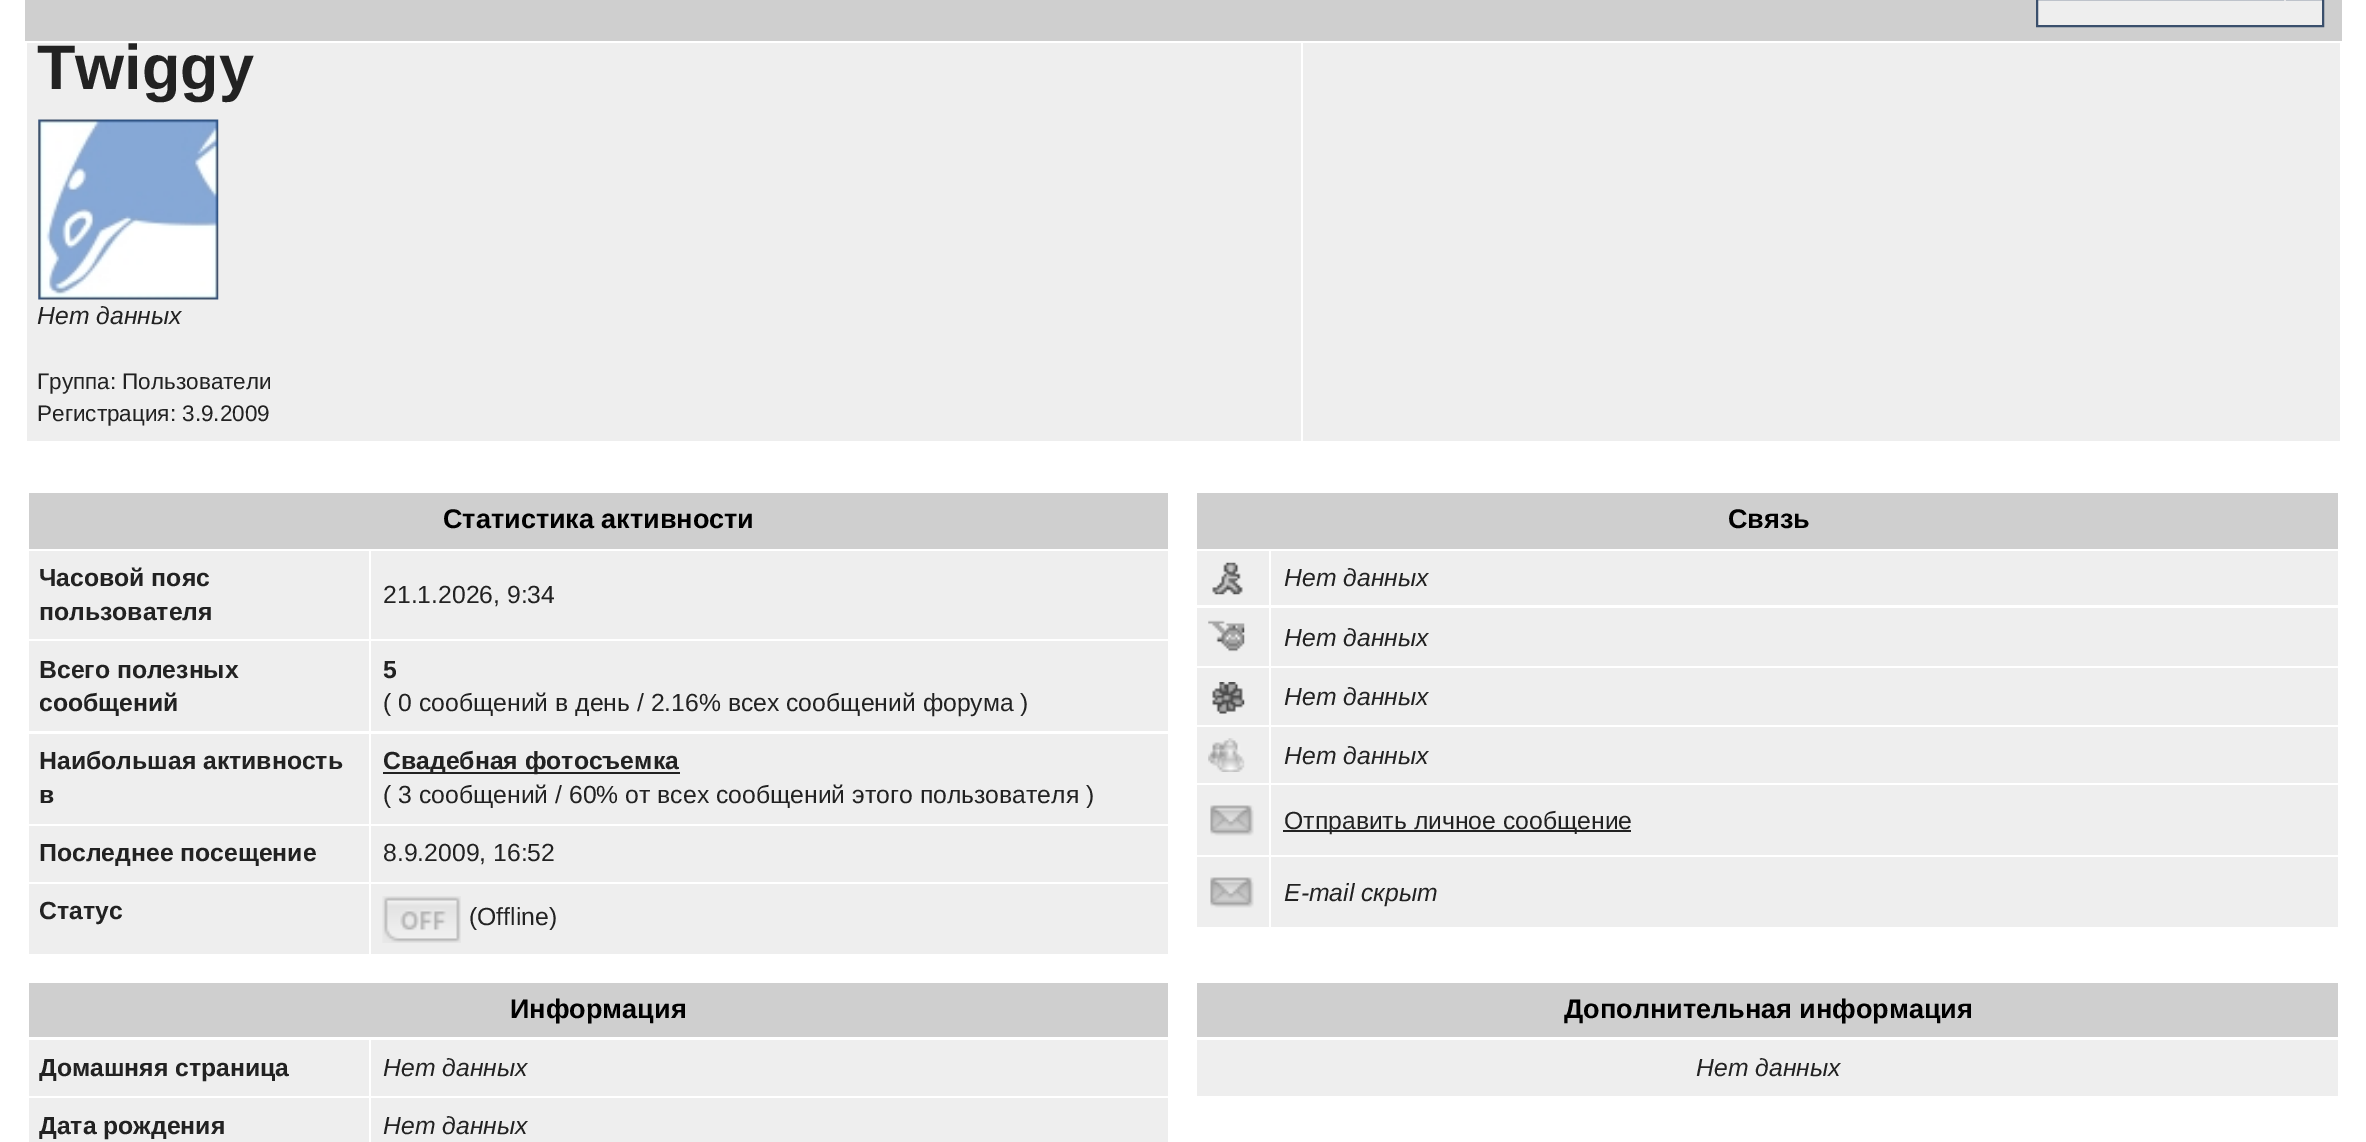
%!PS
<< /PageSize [2366 1142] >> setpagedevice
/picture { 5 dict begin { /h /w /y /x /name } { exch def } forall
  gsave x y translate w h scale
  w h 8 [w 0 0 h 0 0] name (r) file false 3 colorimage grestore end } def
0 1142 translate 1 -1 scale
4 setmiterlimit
1 setgray
0 0 2366 1142 rectfill
0.812 setgray
25 0 2317 41 rectfill
0.933 setgray
newpath 2037 -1 moveto 2323 -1 lineto 2323 26 lineto 2037 26 lineto closepath gsave fill grestore
0.227 0.31 0.424 setrgbcolor
2 setlinewidth
stroke
(img1.rgb) 2284 0 2 1 picture
0.933 setgray
27 43 1274 398 rectfill
/LiberationSans-Bold [63 0 0 -63 0 0] selectfont
0.133 setgray
37 89 moveto (Twiggy) show
(img2.rgb) 38 119 181 181 picture
/LiberationSans-Italic [24.75 0 0 -24.75 0 0] selectfont
37 324 moveto (Нет данных) show
/LiberationSans-Regular [22.5 0 0 -22.5 0 0] selectfont
37 389 moveto (Группа: Пользователи) show
37 421 moveto (Регистрация: 3.9.2009) show
0.933 setgray
1303 43 1037 398 rectfill
0.812 setgray
29 493 1139 56 rectfill
/LiberationSans-Bold [27 0 0 -27 0 0] selectfont
0 setgray
443 528 moveto (Статистика активности) show
0.933 setgray
29 551 340 88 rectfill
/LiberationSans-Bold [24.75 0 0 -24.75 0 0] selectfont
0.133 setgray
39 586 moveto (Часовой пояс) show
39 620 moveto (пользователя) show
0.933 setgray
371 551 797 88 rectfill
/LiberationSans-Regular [24.75 0 0 -24.75 0 0] selectfont
0.133 setgray
383 603 moveto (21.1.2026, 9:34) show
0.933 setgray
29 641 340 90 rectfill
/LiberationSans-Bold [24.75 0 0 -24.75 0 0] selectfont
0.133 setgray
39 678 moveto (Всего полезных) show
39 711 moveto (сообщений) show
0.933 setgray
371 641 797 90 rectfill
0.133 setgray
383 678 moveto (5) show
/LiberationSans-Regular [24.75 0 0 -24.75 0 0] selectfont
383 711 moveto (\( 0 сообщений в день / 2.16% всех сообщений форума \)) show
0.933 setgray
29 734 340 90 rectfill
/LiberationSans-Bold [24.75 0 0 -24.75 0 0] selectfont
0.133 setgray
39 769 moveto (Наибольшая активность) show
39 803 moveto (в) show
0.933 setgray
371 734 797 90 rectfill
0.133 setgray
383 772 297 2 rectfill
383 769 moveto (Свадебная фотосъемка) show
/LiberationSans-Regular [24.75 0 0 -24.75 0 0] selectfont
383 803 moveto (\( 3 сообщений / 60% от всех сообщений этого пользователя \)) show
0.933 setgray
29 826 340 56 rectfill
/LiberationSans-Bold [24.75 0 0 -24.75 0 0] selectfont
0.133 setgray
39 861 moveto (Последнее посещение) show
0.933 setgray
371 826 797 56 rectfill
/LiberationSans-Regular [24.75 0 0 -24.75 0 0] selectfont
0.133 setgray
383 861 moveto (8.9.2009, 16:52) show
0.933 setgray
29 884 340 70 rectfill
/LiberationSans-Bold [24.75 0 0 -24.75 0 0] selectfont
0.133 setgray
39 919 moveto (Статус) show
0.933 setgray
371 884 797 70 rectfill
(img3.rgb) 382 896 79 47 picture
/LiberationSans-Regular [24.75 0 0 -24.75 0 0] selectfont
0.133 setgray
469 925 moveto (\(Offline\)) show
0.812 setgray
1197 493 1141 56 rectfill
/LiberationSans-Bold [27 0 0 -27 0 0] selectfont
0 setgray
1728 528 moveto (Связь) show
0.933 setgray
1197 551 72 54 rectfill
(img4.rgb) 1212 562 31 33 picture
1271 551 1067 54 rectfill
/LiberationSans-Italic [24.75 0 0 -24.75 0 0] selectfont
0.133 setgray
1284 586 moveto (Нет данных) show
0.933 setgray
1197 608 72 58 rectfill
(img5.rgb) 1208 620 37 32 picture
1271 608 1067 58 rectfill
0.133 setgray
1284 646 moveto (Нет данных) show
0.933 setgray
1197 668 72 57 rectfill
(img6.rgb) 1212 682 33 32 picture
1271 668 1067 57 rectfill
0.133 setgray
1284 705 moveto (Нет данных) show
0.933 setgray
1197 727 72 56 rectfill
(img7.rgb) 1208 738 37 34 picture
1271 727 1067 56 rectfill
0.133 setgray
1284 764 moveto (Нет данных) show
0.933 setgray
1197 785 72 70 rectfill
(img8.rgb) 1210 805 44 31 picture
1271 785 1067 70 rectfill
0.133 setgray
1283 830 348 2 rectfill
/LiberationSans-Regular [24.75 0 0 -24.75 0 0] selectfont
1284 829 moveto (Отправить личное сообщение) show
0.933 setgray
1197 857 72 70 rectfill
(img8.rgb) 1210 877 44 31 picture
1271 857 1067 70 rectfill
/LiberationSans-Italic [24.75 0 0 -24.75 0 0] selectfont
0.133 setgray
1284 901 moveto (E-mail скрыт) show
0.812 setgray
29 983 1139 54 rectfill
/LiberationSans-Bold [27 0 0 -27 0 0] selectfont
0 setgray
510 1018 moveto (Информация) show
0.933 setgray
29 1040 340 56 rectfill
/LiberationSans-Bold [24.75 0 0 -24.75 0 0] selectfont
0.133 setgray
39 1076 moveto (Домашняя страница) show
0.933 setgray
371 1040 797 56 rectfill
/LiberationSans-Italic [24.75 0 0 -24.75 0 0] selectfont
0.133 setgray
383 1076 moveto (Нет данных) show
0.933 setgray
29 1098 340 44 rectfill
/LiberationSans-Bold [24.75 0 0 -24.75 0 0] selectfont
0.133 setgray
39 1134 moveto (Дата рождения) show
0.933 setgray
371 1098 797 44 rectfill
/LiberationSans-Italic [24.75 0 0 -24.75 0 0] selectfont
0.133 setgray
383 1134 moveto (Нет данных) show
0.812 setgray
1197 983 1141 54 rectfill
/LiberationSans-Bold [27 0 0 -27 0 0] selectfont
0 setgray
1564 1018 moveto (Дополнительная информация) show
0.933 setgray
1197 1040 1141 56 rectfill
/LiberationSans-Italic [24.75 0 0 -24.75 0 0] selectfont
0.133 setgray
1696 1076 moveto (Нет данных) show
showpage
